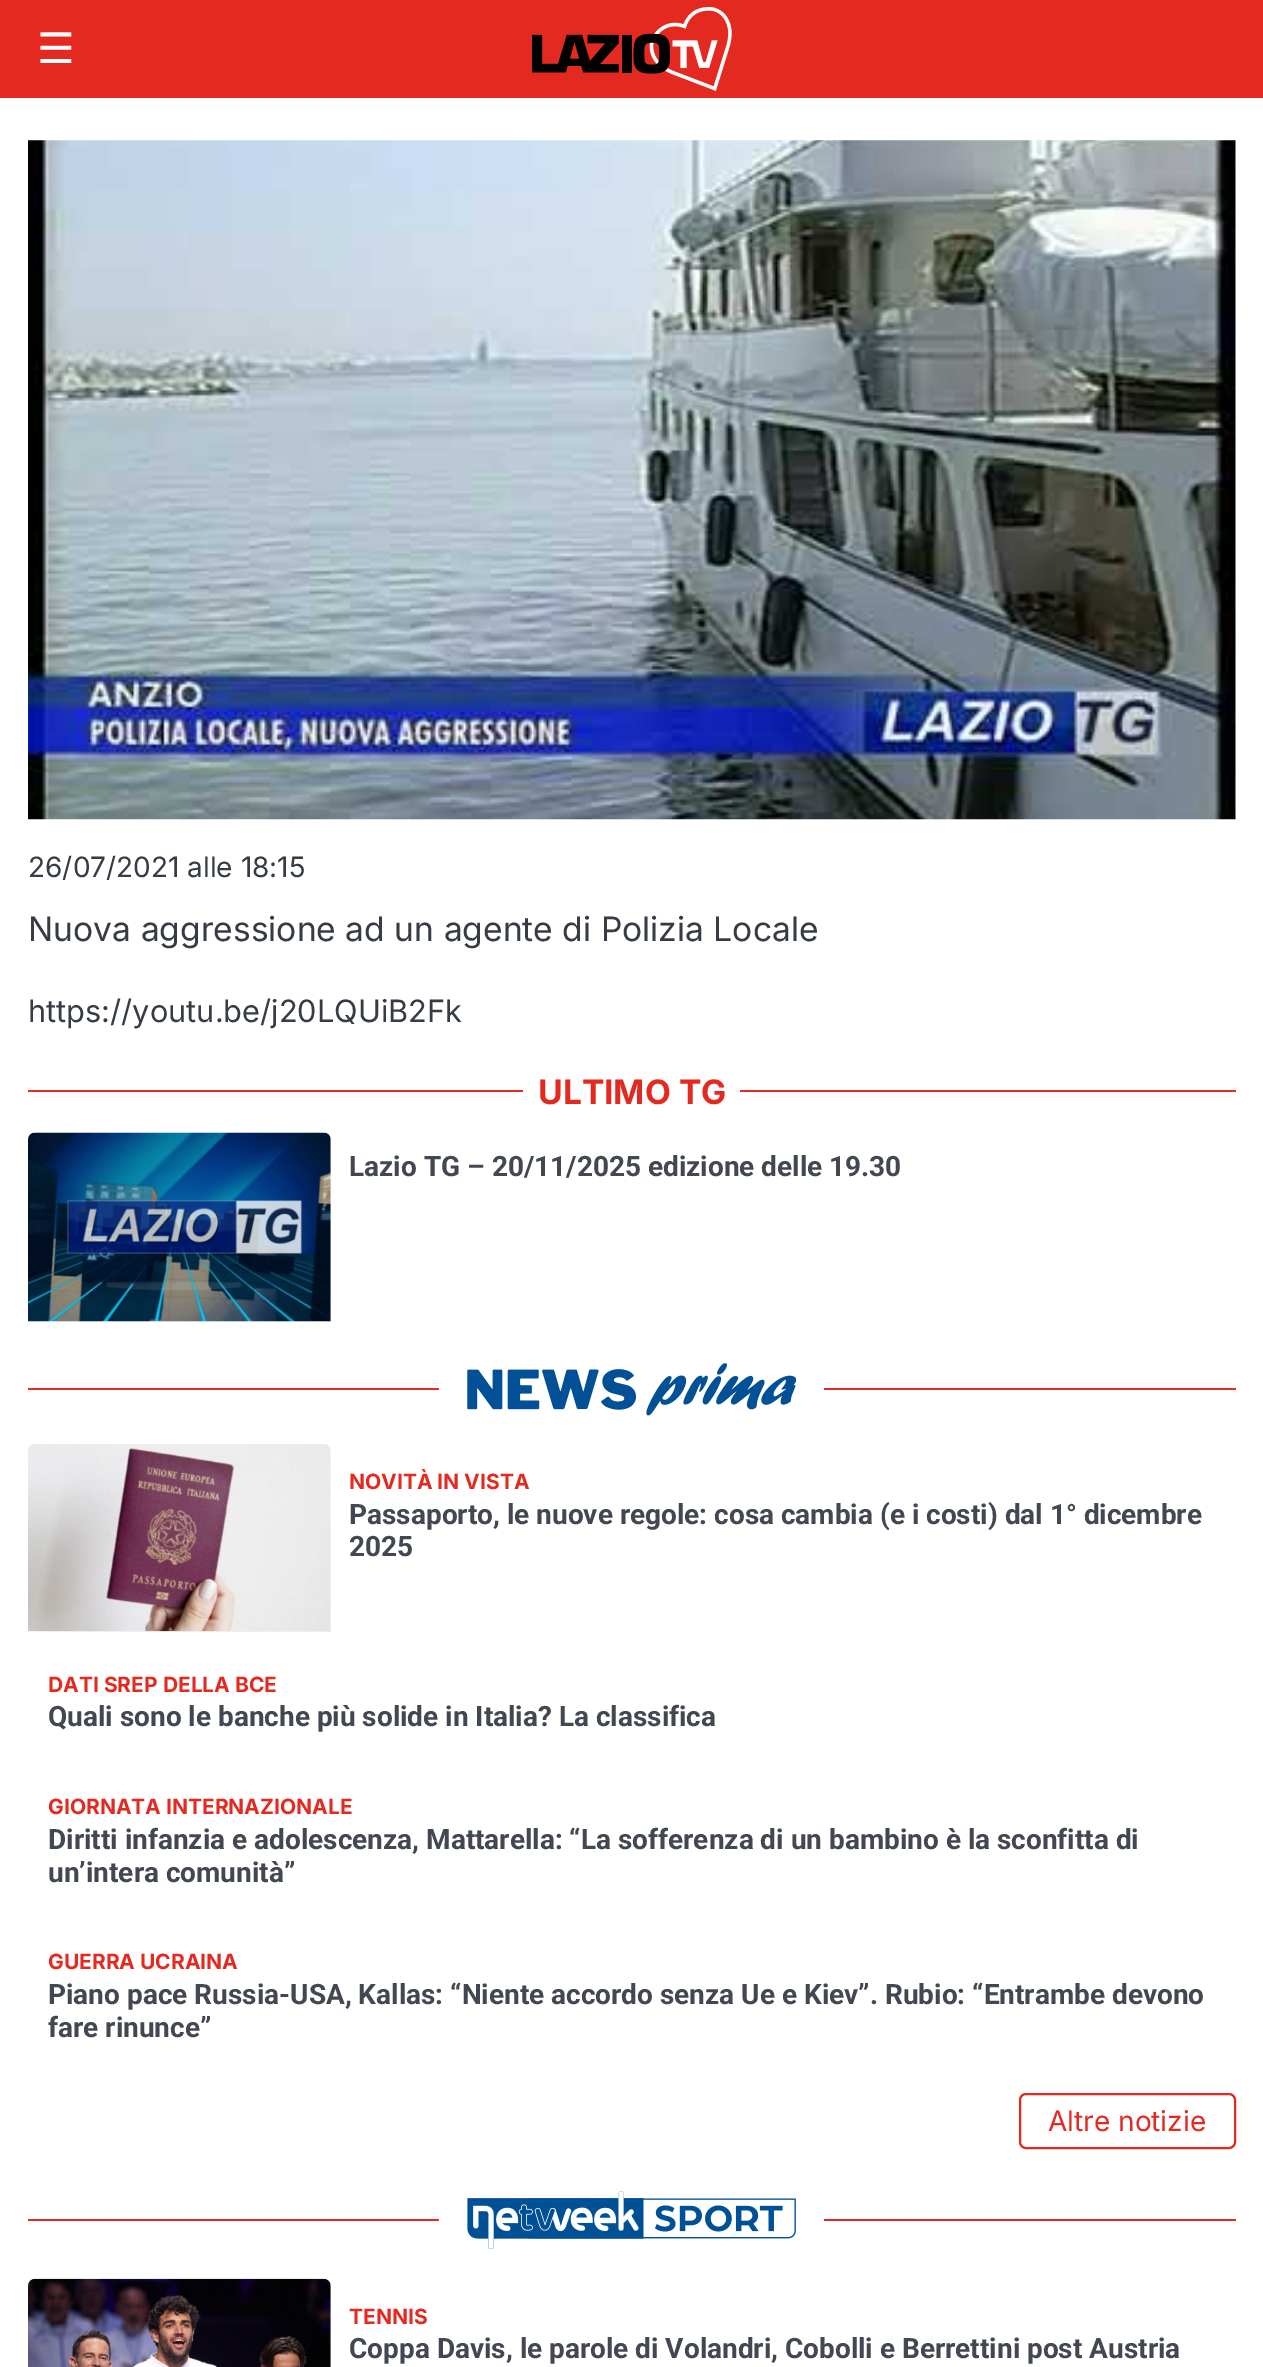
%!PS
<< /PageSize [1263 2367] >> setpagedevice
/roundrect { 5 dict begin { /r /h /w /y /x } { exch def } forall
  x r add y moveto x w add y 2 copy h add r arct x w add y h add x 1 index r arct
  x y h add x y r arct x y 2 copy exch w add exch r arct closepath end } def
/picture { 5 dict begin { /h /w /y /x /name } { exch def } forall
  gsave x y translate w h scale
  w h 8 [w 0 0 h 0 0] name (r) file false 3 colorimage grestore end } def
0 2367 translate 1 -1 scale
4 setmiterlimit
1 setgray
0 0 1263 2367 rectfill
0.894 0.161 0.125 setrgbcolor
0 0 1263 98 rectfill
/DejaVuSans-Regular [42 0 0 -42 0 0] selectfont
1 setgray
37 63 moveto (☰) show
(img1.rgb) 532 7 200 84 picture
(img2.rgb) 28 140 1208 680 picture
/Inter-Regular [28 0 0 -28 0 0] selectfont
0.216 0.235 0.267 setrgbcolor
28 877 moveto (26/07/2021 alle 18:15) show
/Inter-Regular [33.6 0 0 -33.6 0 0] selectfont
28 941 moveto (Nuova aggressione ad un agente di Polizia Locale) show
/Inter-Regular [30.75 0 0 -30.75 0 0] selectfont
28 1022 moveto (https://youtu.be/j20LQUiB2Fk) show
0.894 0.161 0.125 setrgbcolor
28 1090 1208 2 rectfill
1 setgray
523 1090 217 2 rectfill
/Inter-Bold [33.6 0 0 -33.6 0 0] selectfont
0.894 0.161 0.125 setrgbcolor
538 1104 moveto (ULTIMO TG) show
(img3.rgb) 28 1132 303 190 picture
/Roboto-Bold [28 0 0 -28 0 0] selectfont
0.259 0.278 0.318 setrgbcolor
349 1176 moveto (Lazio TG – 20/11/2025 edizione delle 19.30) show
0.894 0.161 0.125 setrgbcolor
28 1388 1208 2 rectfill
1 setgray
439 1388 385 2 rectfill
(img4.rgb) 467 1363 329 53 picture
(img5.rgb) 28 1444 303 188 picture
/Inter-Bold [21 0 0 -21 0 0] selectfont
0.894 0.161 0.125 setrgbcolor
349 1489 moveto (NOVITÀ IN VISTA) show
/Roboto-Bold [28 0 0 -28 0 0] selectfont
0.259 0.278 0.318 setrgbcolor
349 1524 moveto (Passaporto, le nuove regole: cosa cambia \(e i costi\) dal 1° dicembre) show
349 1556 moveto (2025) show
/Inter-Bold [21 0 0 -21 0 0] selectfont
0.894 0.161 0.125 setrgbcolor
48 1692 moveto (DATI SREP DELLA BCE) show
/Roboto-Bold [28 0 0 -28 0 0] selectfont
0.259 0.278 0.318 setrgbcolor
48 1726 moveto (Quali sono le banche più solide in Italia? La classifica) show
/Inter-Bold [21 0 0 -21 0 0] selectfont
0.894 0.161 0.125 setrgbcolor
48 1814 moveto (GIORNATA INTERNAZIONALE) show
/Roboto-Bold [28 0 0 -28 0 0] selectfont
0.259 0.278 0.318 setrgbcolor
48 1849 moveto (Diritti infanzia e adolescenza, Mattarella: “La sofferenza di un bambino è la sconfitta di) show
48 1882 moveto (un’intera comunità”) show
/Inter-Bold [21 0 0 -21 0 0] selectfont
0.894 0.161 0.125 setrgbcolor
48 1969 moveto (GUERRA UCRAINA) show
/Roboto-Bold [28 0 0 -28 0 0] selectfont
0.259 0.278 0.318 setrgbcolor
48 2004 moveto (Piano pace Russia-USA, Kallas: “Niente accordo senza Ue e Kiev”. Rubio: “Entrambe devono) show
48 2037 moveto (fare rinunce”) show
0.894 0.161 0.125 setrgbcolor
2 setlinewidth
1020 2094 215 54 6 roundrect stroke
/Inter-Regular [28 0 0 -28 0 0] selectfont
1048 2131 moveto (Altre notizie) show
28 2219 1208 2 rectfill
1 setgray
439 2219 385 2 rectfill
(img6.rgb) 467 2191 329 58 picture
(img7.rgb) 28 2278 303 89 picture
/Inter-Bold [21 0 0 -21 0 0] selectfont
0.894 0.161 0.125 setrgbcolor
349 2324 moveto (TENNIS) show
/Roboto-Bold [28 0 0 -28 0 0] selectfont
0.259 0.278 0.318 setrgbcolor
349 2358 moveto (Coppa Davis, le parole di Volandri, Cobolli e Berrettini post Austria) show
showpage
